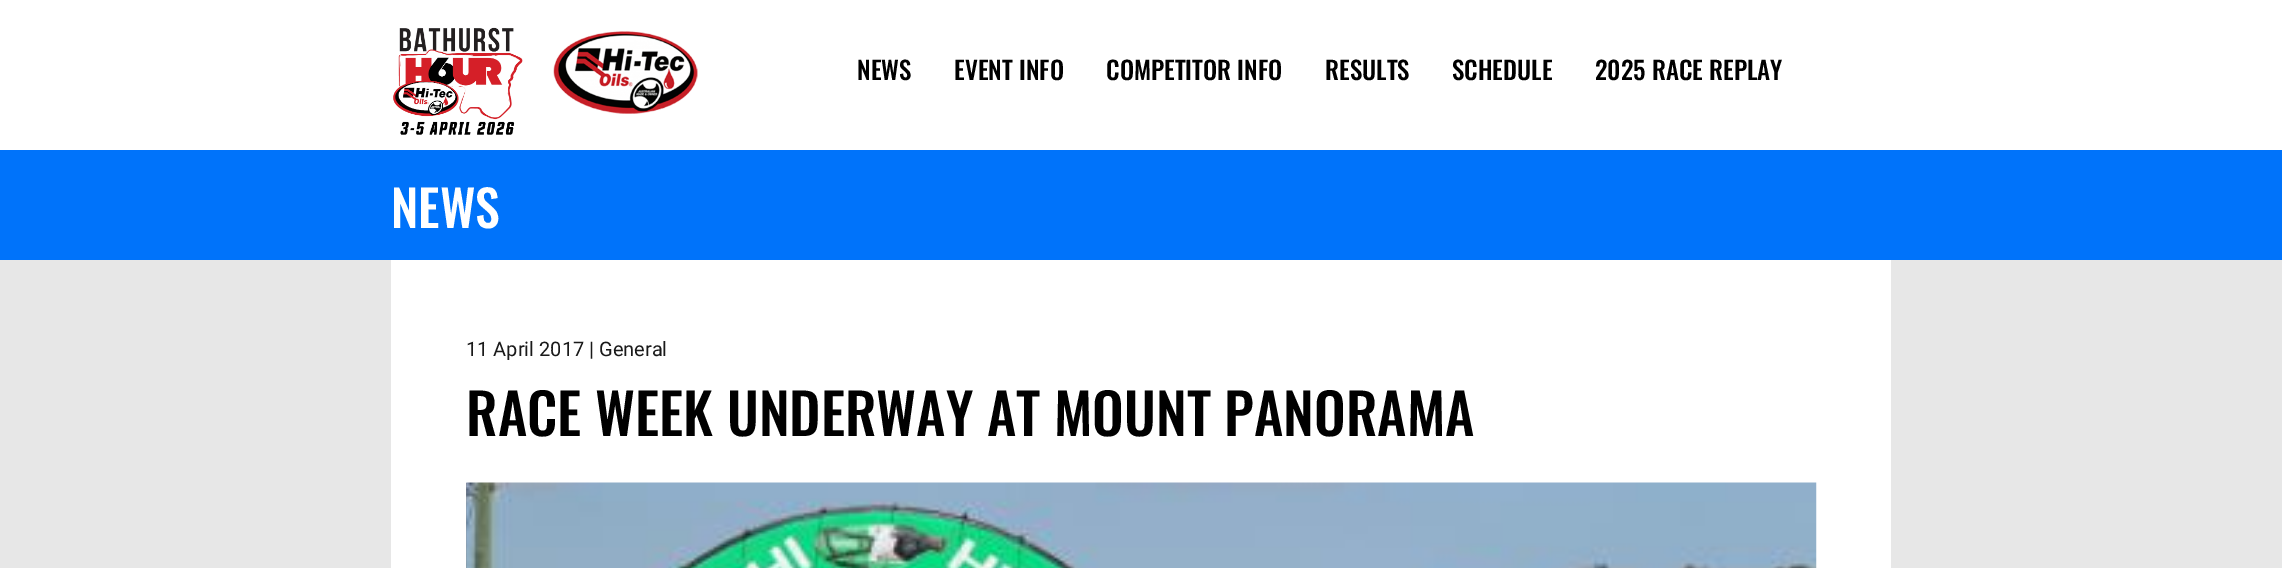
%!PS
<< /PageSize [2282 568] >> setpagedevice
/picture { 5 dict begin { /h /w /y /x /name } { exch def } forall
  gsave x y translate w h scale
  w h 8 [w 0 0 h 0 0] name (r) file false 3 colorimage grestore end } def
0 568 translate 1 -1 scale
4 setmiterlimit
0.906 setgray
0 0 2282 568 rectfill
1 setgray
0 0 2282 150 rectfill
(img1.rgb) 393 27 130 108 picture
(img2.rgb) 553 31 145 83 picture
/Oswald-Medium [25 0 0 -25 0 0] selectfont
0 setgray
857 80 moveto (NEWS) show
954 80 moveto (EVENT INFO) show
1106 80 moveto (COMPETITOR INFO) show
1325 80 moveto (RESULTS) show
1452 80 moveto (SCHEDULE) show
1595 80 moveto (2025 RACE REPLAY) show
0 0.451 0.98 setrgbcolor
0 150 2282 110 rectfill
/Oswald-Medium [50 0 0 -50 0 0] selectfont
1 setgray
391 228 moveto (NEWS) show
391 260 1500 308 rectfill
/Roboto-Regular [20 0 0 -20 0 0] selectfont
0.102 setgray
466 356 moveto (11 April 2017 | General) show
/Oswald-Medium [56.25 0 0 -56.25 0 0] selectfont
0 setgray
466 436 moveto (RACE WEEK UNDERWAY AT MOUNT PANORAMA) show
(img3.rgb) 466 482 1351 86 picture
showpage
